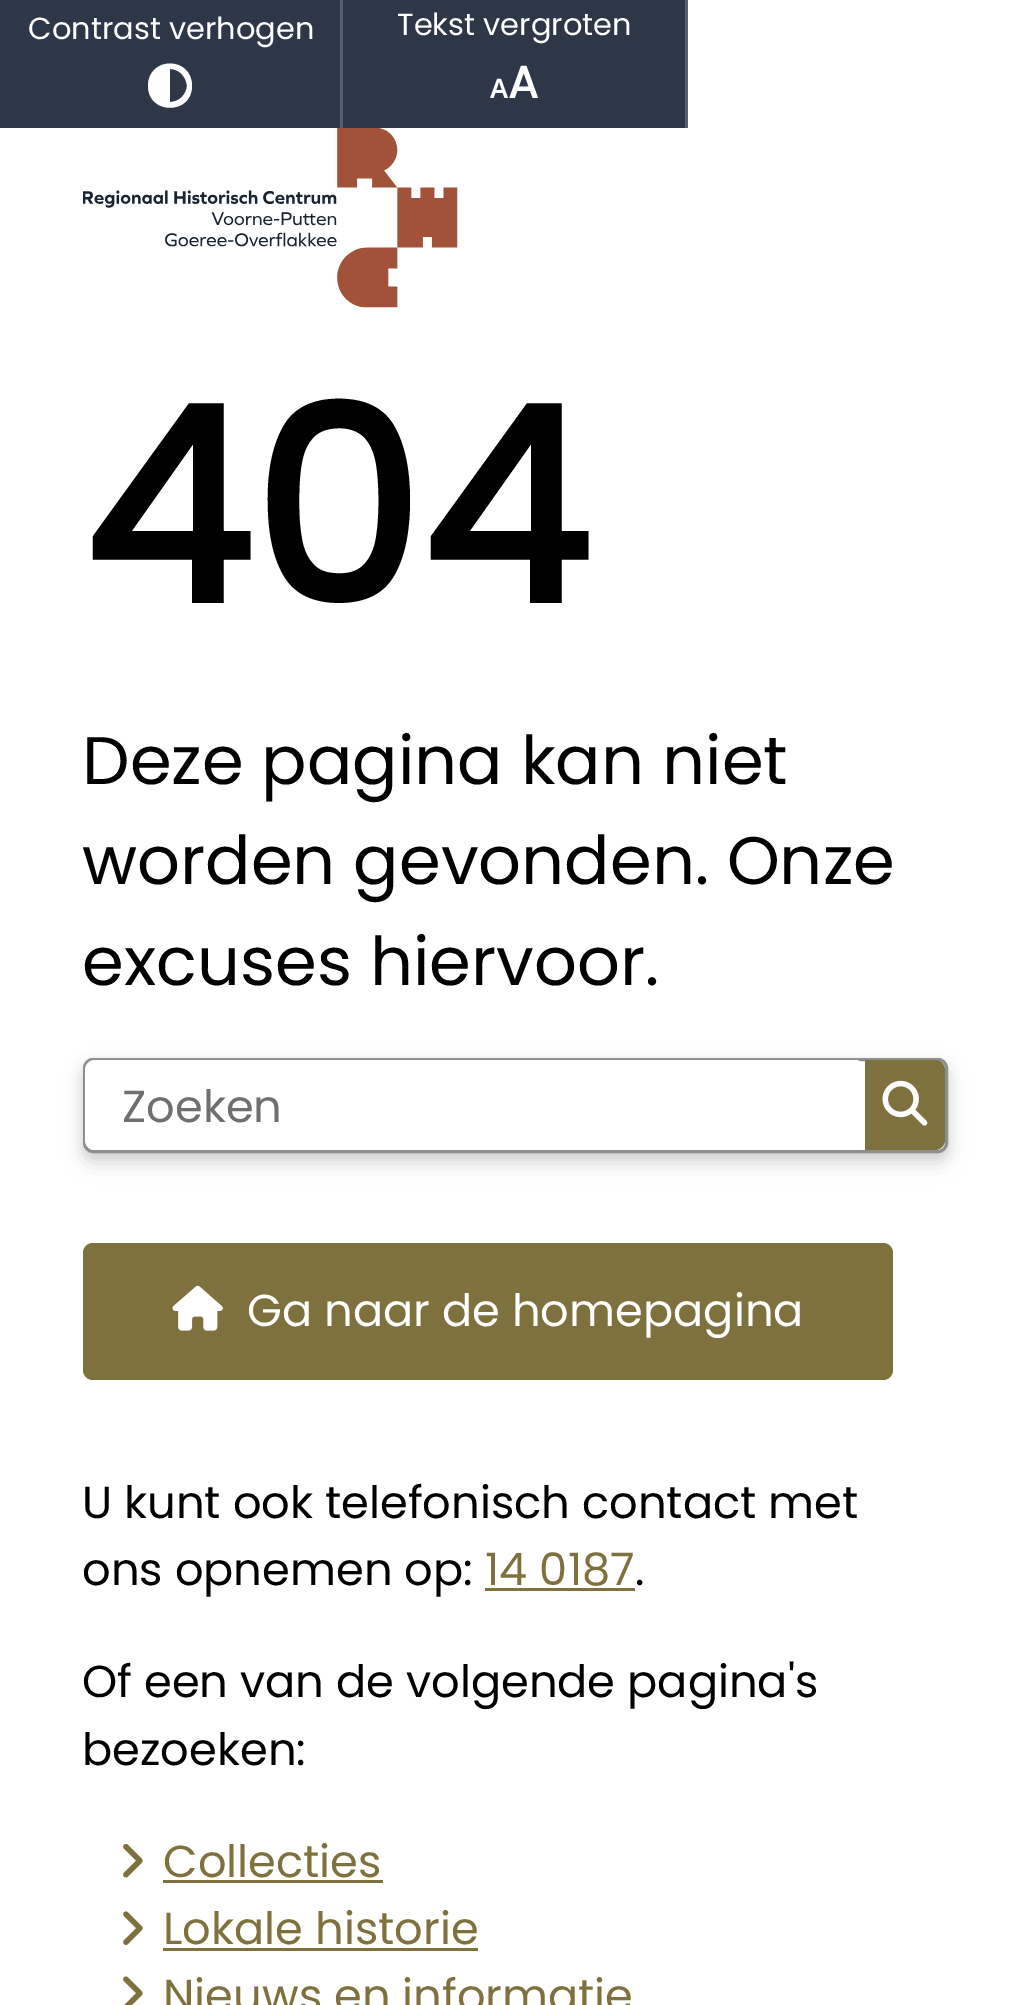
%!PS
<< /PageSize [1028 2005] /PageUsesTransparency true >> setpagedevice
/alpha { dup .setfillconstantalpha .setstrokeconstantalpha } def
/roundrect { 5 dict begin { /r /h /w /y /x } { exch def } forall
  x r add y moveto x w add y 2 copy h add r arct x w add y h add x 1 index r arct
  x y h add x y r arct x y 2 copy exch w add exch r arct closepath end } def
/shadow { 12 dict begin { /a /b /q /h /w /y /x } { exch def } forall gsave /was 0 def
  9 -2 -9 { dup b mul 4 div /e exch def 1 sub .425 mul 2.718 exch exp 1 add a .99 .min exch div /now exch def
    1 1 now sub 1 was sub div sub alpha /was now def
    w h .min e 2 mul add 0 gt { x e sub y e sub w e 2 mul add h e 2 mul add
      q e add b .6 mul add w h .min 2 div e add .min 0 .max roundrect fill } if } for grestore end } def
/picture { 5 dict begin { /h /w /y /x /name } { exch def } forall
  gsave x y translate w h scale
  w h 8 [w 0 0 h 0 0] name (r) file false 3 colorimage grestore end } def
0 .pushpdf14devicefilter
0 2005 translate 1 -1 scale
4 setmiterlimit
1 setgray
0 0 1028 2005 rectfill
0.176 0.216 0.282 setrgbcolor
0 0 340 128 rectfill
0.341 0.373 0.427 setrgbcolor
340 0 3 128 rectfill
/Poppins-Regular [30.5 0 0 -30.5 0 0] selectfont
1 setgray
28 39 moveto (Contrast verhogen) show
newpath 187 86 moveto 186 76 179 69 170 69 curveto 170 102 lineto 179 102 186 95 187 86 curveto closepath 148 86 moveto 148 56 192 56 192 86 curveto 192 115 148 115 148 86 curveto closepath fill
0.176 0.216 0.282 setrgbcolor
343 0 342 128 rectfill
0.341 0.373 0.427 setrgbcolor
685 0 3 128 rectfill
1 setgray
397 35 moveto (Tekst vergroten) show
/NotoSans-SemiBold [27 0 0 -27 0 0] selectfont
490 98 moveto (A) show
/Poppins-Bold [44.75 0 0 -44.75 0 0] selectfont
508 98 moveto (A) show
(img1.rgb) 83 128 375 180 picture
/Poppins-Bold [269 0 0 -269 0 0] selectfont
0 setgray
82 603 moveto (404) show
/Poppins-Regular [67.25 0 0 -67.25 0 0] selectfont
82 784 moveto (Deze pagina kan niet) show
82 884 moveto (worden gevonden. Onze) show
82 985 moveto (excuses hiervoor.) show
83 1063 865 95 10 5 0.08 shadow
83 1068 865 95 10 10 0.12 shadow
1 setgray
84.5 1059.5 862 92 8.5 roundrect gsave fill grestore
0.561 setgray
3 setlinewidth
stroke
1 setgray
85 1060 780 90 10 roundrect fill
/Poppins-Regular [44.75 0 0 -44.75 0 0] selectfont
0.435 setgray
122 1122 moveto (Zoeken) show
0.498 0.443 0.243 setrgbcolor
newpath 865 1060 moveto 935 1060 lineto 940.5 1060 945 1064.5 945 1070 curveto 945 1140 lineto 945 1145.5 940.5 1150 935 1150 curveto 865 1150 lineto closepath fill
(img2.rgb) 882 1080 46 46 picture
83 1243 810 137 10 roundrect fill
(img3.rgb) 172 1285 51 46 picture
1 setgray
247 1326 moveto (Ga naar de homepagina) show
0 setgray
82 1518 moveto (U kunt ook telefonisch contact met) show
82 1585 moveto (ons opnemen op:) show
0.498 0.443 0.243 setrgbcolor
485 1585 moveto (14 0187) show
485 1588 150 3 rectfill
0 setgray
635 1585 moveto (.) show
82 1697 moveto (Of een van de volgende pagina's) show
82 1765 moveto (bezoeken:) show
(img4.rgb) 123 1843 20 35 picture
0.498 0.443 0.243 setrgbcolor
163 1877 moveto (Collecties) show
163 1880 220 3 rectfill
(img5.rgb) 123 1911 20 34 picture
163 1944 moveto (Lokale historie) show
163 1948 315 3 rectfill
(img6.rgb) 123 1976 20 29 picture
163 2011 moveto (Nieuws en informatie) show
.poppdf14devicefilter showpage
